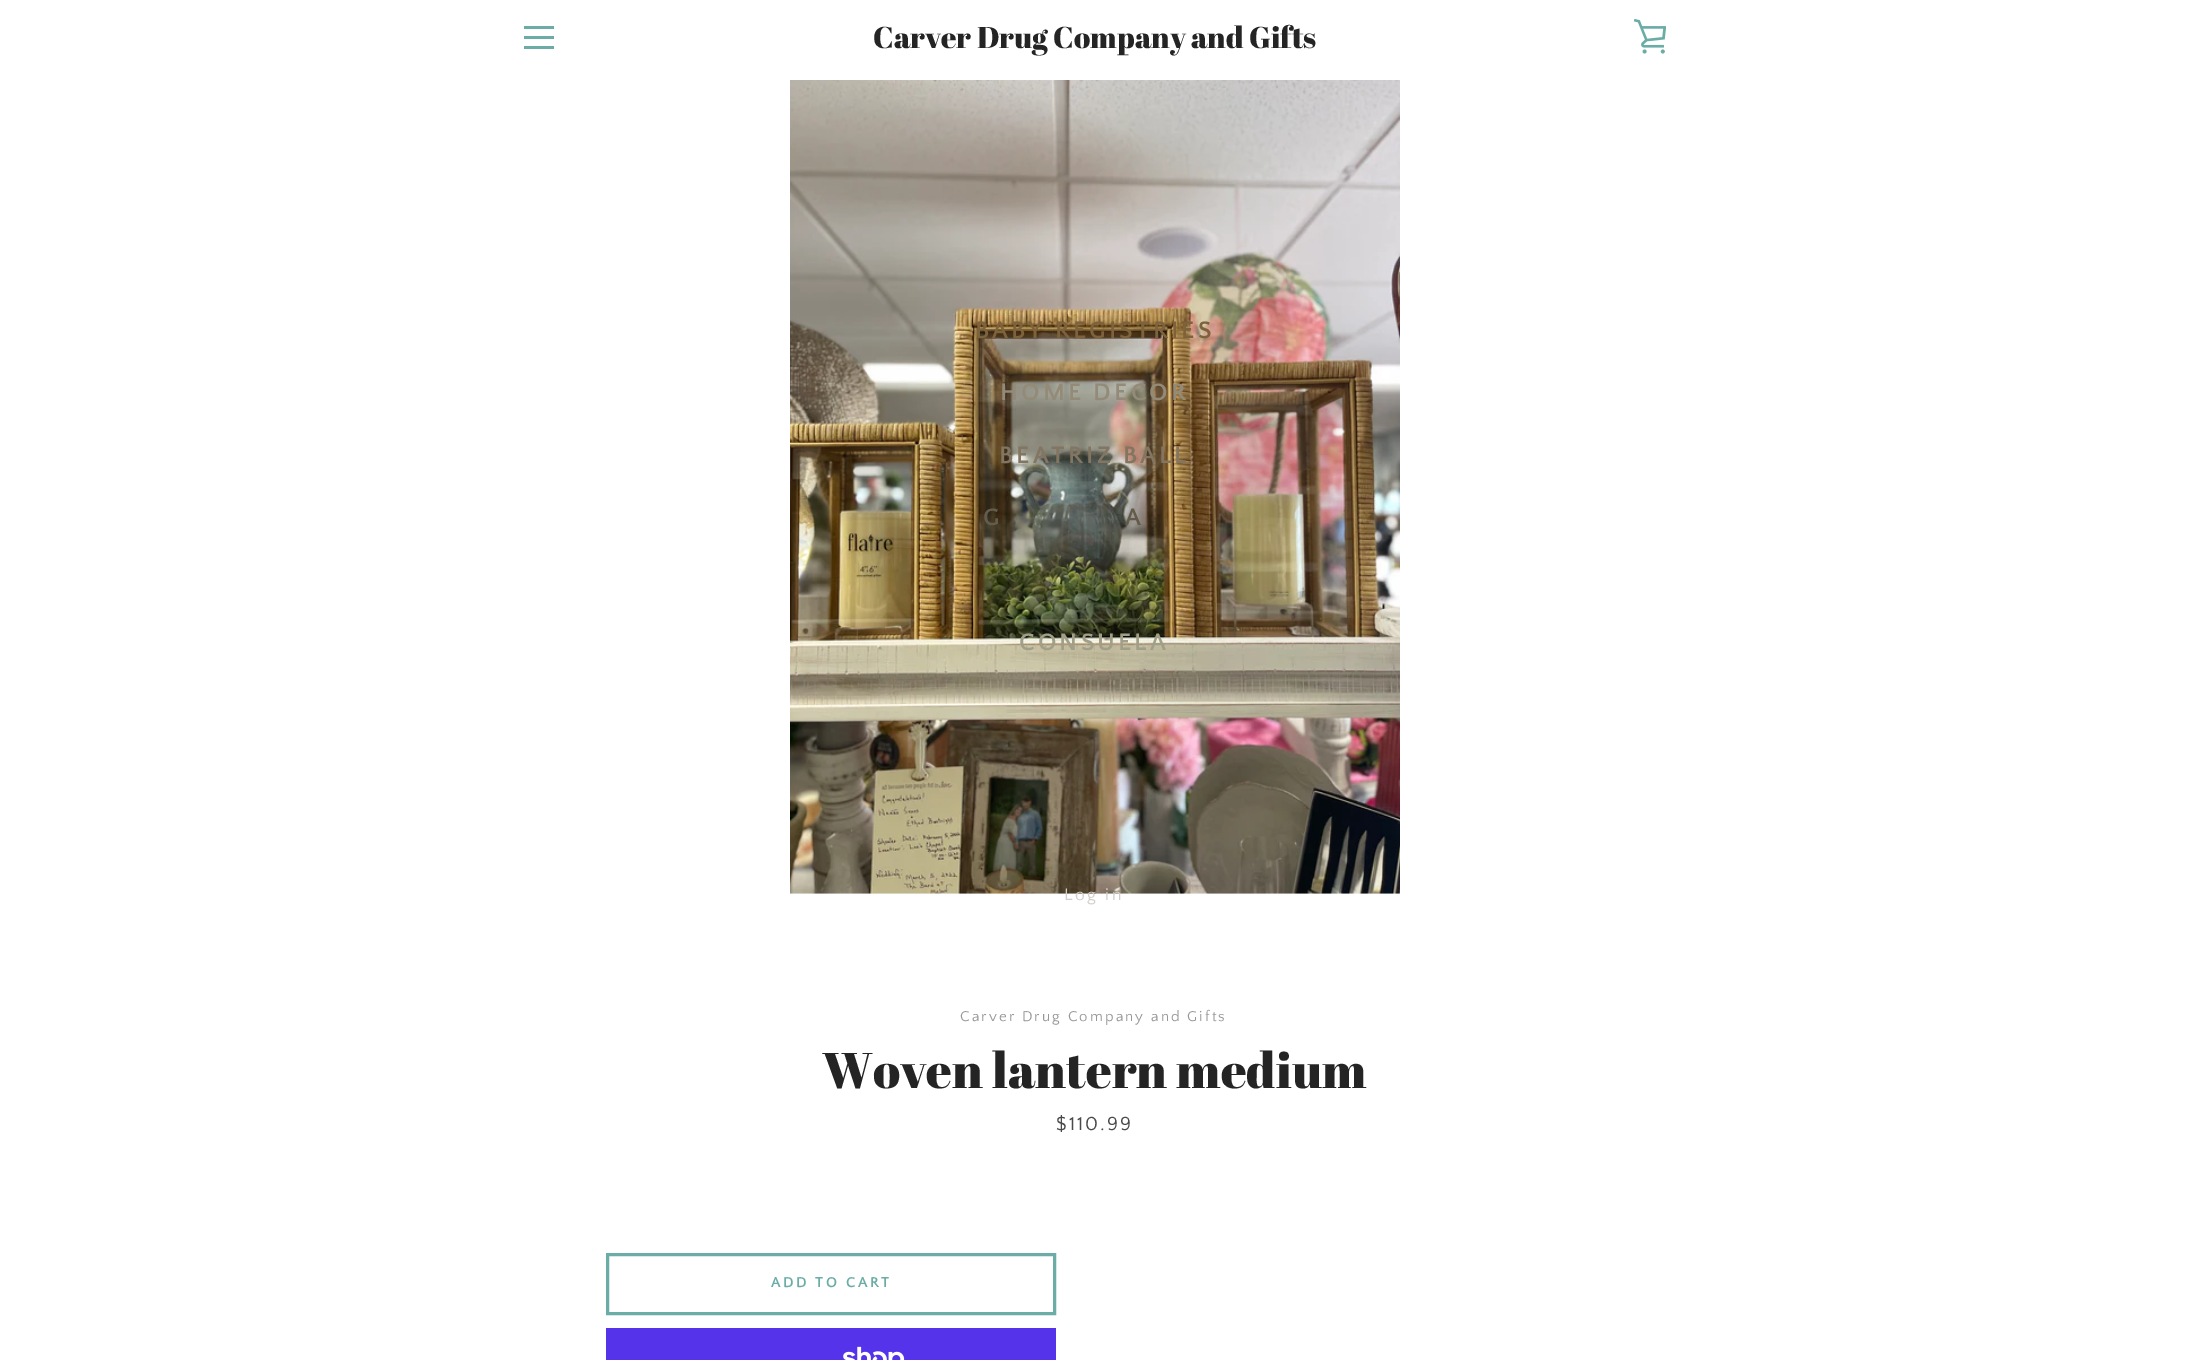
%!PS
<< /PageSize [2188 1360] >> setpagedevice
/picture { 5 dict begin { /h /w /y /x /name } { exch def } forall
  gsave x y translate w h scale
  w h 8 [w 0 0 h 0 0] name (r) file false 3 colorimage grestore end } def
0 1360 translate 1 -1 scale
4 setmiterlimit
1 setgray
0 0 2188 1360 rectfill
/AbrilFatface-Regular [30 0 0 -30 0 0] selectfont
0.141 setgray
873 48 moveto (Carver Drug Company and Gifts) show
(img1.rgb) 1634 18 32 36 picture
0.42 0.678 0.651 setrgbcolor
524 26 30 3 rectfill
524 36 30 3 rectfill
524 46 30 3 rectfill
(img2.rgb) 790 80 610 814 picture
/QuattrocentoSans-Bold [25 0 0 -25 0 0] selectfont
0.49 0.384 0.231 setrgbcolor
975 338 moveto 3.1 0 (BABY REGISTRIES) ashow
0.576 0.545 0.471 setrgbcolor
1000 400 moveto 3.1 0 (HOME DECOR) ashow
0.51 0.459 0.384 setrgbcolor
999 463 moveto 3.1 0 (BEATRIZ BALL) ashow
0.392 0.361 0.29 setrgbcolor
983 525 moveto 3.1 0 (G) ashow
1125 525 moveto 3.1 0 (A) ashow
0.635 0.624 0.537 setrgbcolor
1019 650 moveto 3.1 0 (CONSUELA) ashow
/QuattrocentoSans-Regular [17.5 0 0 -17.5 0 0] selectfont
0.824 0.808 0.788 setrgbcolor
1064 900 moveto 2.5 0 (Log in) ashow
/QuattrocentoSans-Regular [15 0 0 -15 0 0] selectfont
0.592 setgray
960 1021 moveto 2.1 0 (Carver Drug Company and Gifts) ashow
/AbrilFatface-Regular [50 0 0 -50 0 0] selectfont
0.141 setgray
822 1088 moveto (Woven lantern medium) show
/QuattrocentoSans-Regular [20 0 0 -20 0 0] selectfont
0.29 setgray
1056 1130 moveto 2 0 ($110.99) ashow
0.42 0.678 0.651 setrgbcolor
3 setlinewidth
607.5 1254.5 447 59 rectstroke
/QuattrocentoSans-Bold [15 0 0 -15 0 0] selectfont
771 1287 moveto 2.5 0 (ADD TO CART) ashow
0.329 0.2 0.922 setrgbcolor
606 1328 450 32 rectfill
(img3.rgb) 843 1346 62 14 picture
showpage
